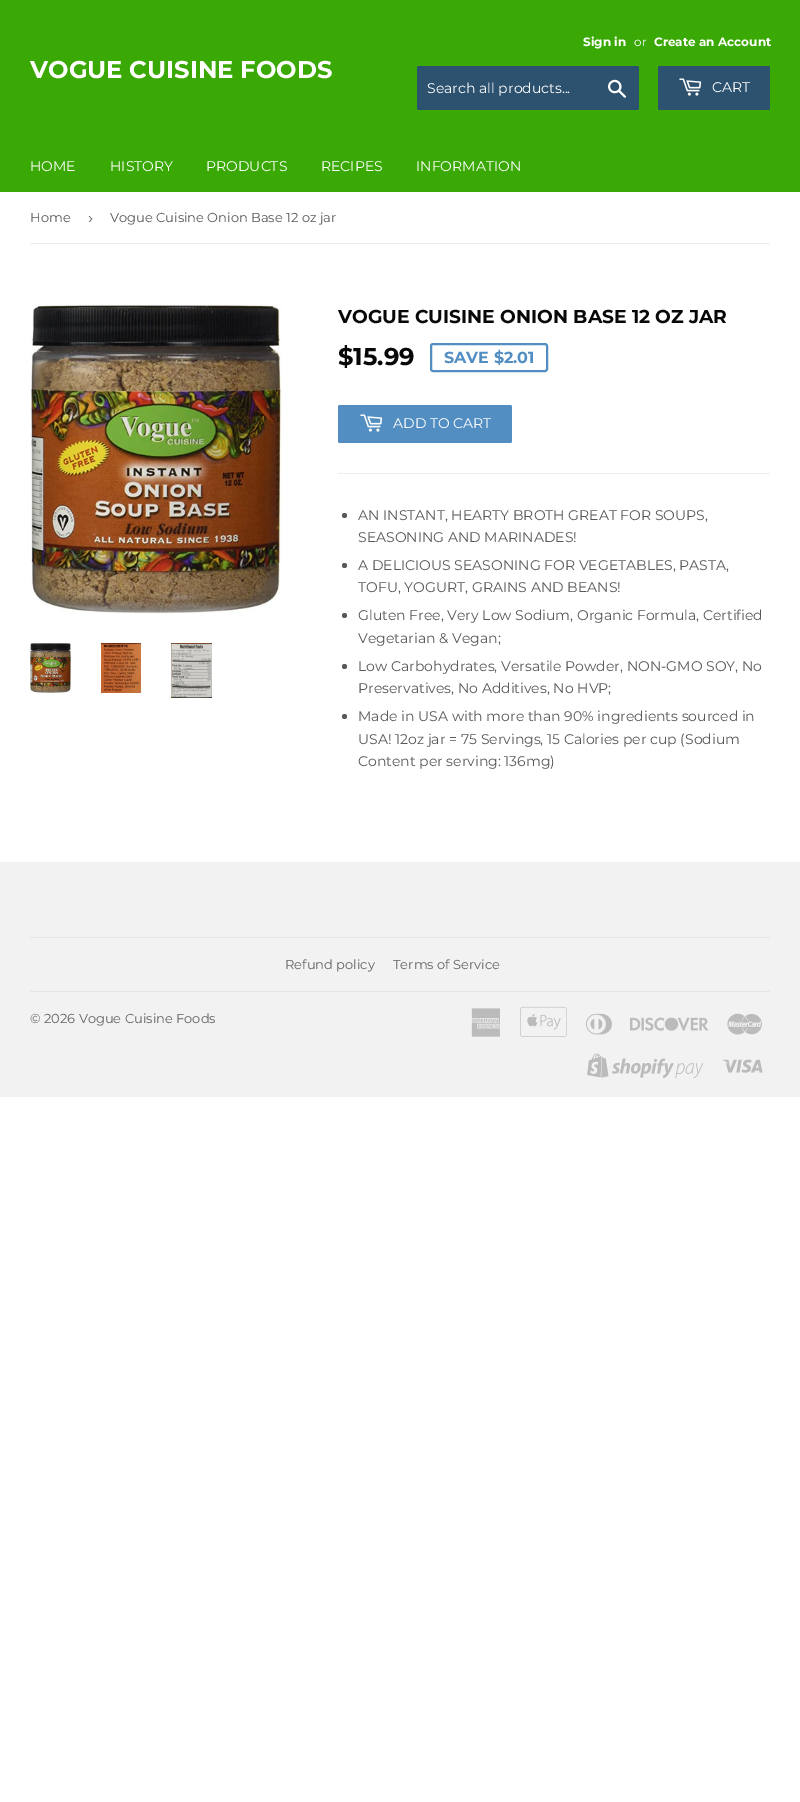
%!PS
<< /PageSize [800 1802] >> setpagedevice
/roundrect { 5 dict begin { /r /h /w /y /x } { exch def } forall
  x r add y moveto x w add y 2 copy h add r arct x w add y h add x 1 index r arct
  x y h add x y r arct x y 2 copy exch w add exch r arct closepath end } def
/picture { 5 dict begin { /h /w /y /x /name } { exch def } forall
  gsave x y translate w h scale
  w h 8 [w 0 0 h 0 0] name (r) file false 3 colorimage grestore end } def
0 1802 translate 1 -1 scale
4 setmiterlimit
1 setgray
0 0 800 1802 rectfill
0.231 0.663 0.02 setrgbcolor
0 0 800 192 rectfill
/Montserrat-Bold [24.25 0 0 -24.25 0 0] selectfont
1 setgray
30 78 moveto (VOGUE CUISINE FOODS) show
/Montserrat-Bold [12 0 0 -12 0 0] selectfont
583 46 moveto (Sign in) show
/Montserrat-Regular [12 0 0 -12 0 0] selectfont
634 46 moveto (or) show
/Montserrat-Bold [12 0 0 -12 0 0] selectfont
654 46 moveto (Create an Account) show
0.176 0.322 0.439 setrgbcolor
417 66 222 44 2 roundrect fill
/Montserrat-Regular [14 0 0 -14 0 0] selectfont
1 setgray
427 93 moveto (Search all products...) show
(img1.rgb) 608 79 18 19 picture
0.176 0.322 0.439 setrgbcolor
658 66 112 44 2 roundrect fill
(img2.rgb) 679 78 23 18 picture
1 setgray
712 92 moveto (CART) show
30 171 moveto (HOME) show
110 171 moveto (HISTORY) show
206 171 moveto (PRODUCTS) show
321 171 moveto (RECIPES) show
416 171 moveto (INFORMATION) show
0.925 setgray
30 243 740 1 rectfill
/Montserrat-Regular [13 0 0 -13 0 0] selectfont
0.345 setgray
30 222 moveto (Home) show
/LiberationSans-Regular [15 0 0 -15 0 0] selectfont
0.463 setgray
88 223 moveto (›) show
/Montserrat-Regular [13 0 0 -13 0 0] selectfont
0.345 setgray
110 222 moveto (Vogue Cuisine Onion Base 12 oz jar) show
(img3.rgb) 30 304 252 310 picture
(img4.rgb) 30 643 41 50 picture
(img5.rgb) 101 643 40 50 picture
(img6.rgb) 171 643 41 55 picture
/Montserrat-Bold [18.7 0 0 -18.7 0 0] selectfont
0.031 setgray
338 323 moveto (VOGUE CUISINE ONION BASE 12 OZ JAR) show
/Montserrat-Bold [24.25 0 0 -24.25 0 0] selectfont
338 365 moveto ($15.99) show
0.322 0.557 0.757 setrgbcolor
2 setlinewidth
431 344 116 27 2 roundrect stroke
/Montserrat-Bold [16 0 0 -16 0 0] selectfont
444 363 moveto (SAVE $2.01) show
338 405 174 38 2 roundrect fill
(img7.rgb) 360 414 23 18 picture
/Montserrat-Regular [14 0 0 -14 0 0] selectfont
1 setgray
393 428 moveto (ADD TO CART) show
0.925 setgray
338 473 432 1 rectfill
0.345 setgray
newpath 344.5 515.5 2.5 0 360 arc closepath fill
358 520 moveto (AN INSTANT, HEARTY BROTH GREAT FOR SOUPS,) show
358 542 moveto (SEASONING AND MARINADES!) show
newpath 344.5 565.5 2.5 0 360 arc closepath fill
358 570 moveto (A DELICIOUS SEASONING FOR VEGETABLES, PASTA,) show
358 592 moveto (TOFU, YOGURT, GRAINS AND BEANS!) show
newpath 344.5 615.5 2.5 0 360 arc closepath fill
358 620 moveto (Gluten Free, Very Low Sodium, Organic Formula, Certified) show
358 643 moveto (Vegetarian & Vegan;) show
newpath 344.5 666.5 2.5 0 360 arc closepath fill
358 671 moveto (Low Carbohydrates, Versatile Powder, NON-GMO SOY, No) show
358 693 moveto (Preservatives, No Additives, No HVP;) show
newpath 344.5 716.5 2.5 0 360 arc closepath fill
358 721 moveto (Made in USA with more than 90% ingredients sourced in) show
358 744 moveto (USA! 12oz jar = 75 Servings, 15 Calories per cup \(Sodium) show
358 766 moveto (Content per serving: 136mg\)) show
0.949 setgray
0 862 800 235 rectfill
0.898 setgray
30 937 740 1 rectfill
/Montserrat-Regular [13 0 0 -13 0 0] selectfont
0.388 setgray
285 969 moveto (Refund policy) show
393 969 moveto (Terms of Service) show
0.898 setgray
30 991 740 1 rectfill
0.388 setgray
30 1023 moveto (© 2026 Vogue Cuisine Foods) show
(img8.rgb) 471 1008 30 29 picture
(img9.rgb) 520 1006 47 31 picture
(img10.rgb) 586 1013 26 22 picture
(img11.rgb) 630 1017 79 14 picture
(img12.rgb) 727 1013 35 22 picture
(img13.rgb) 587 1053 117 26 picture
(img14.rgb) 722 1059 41 14 picture
showpage
